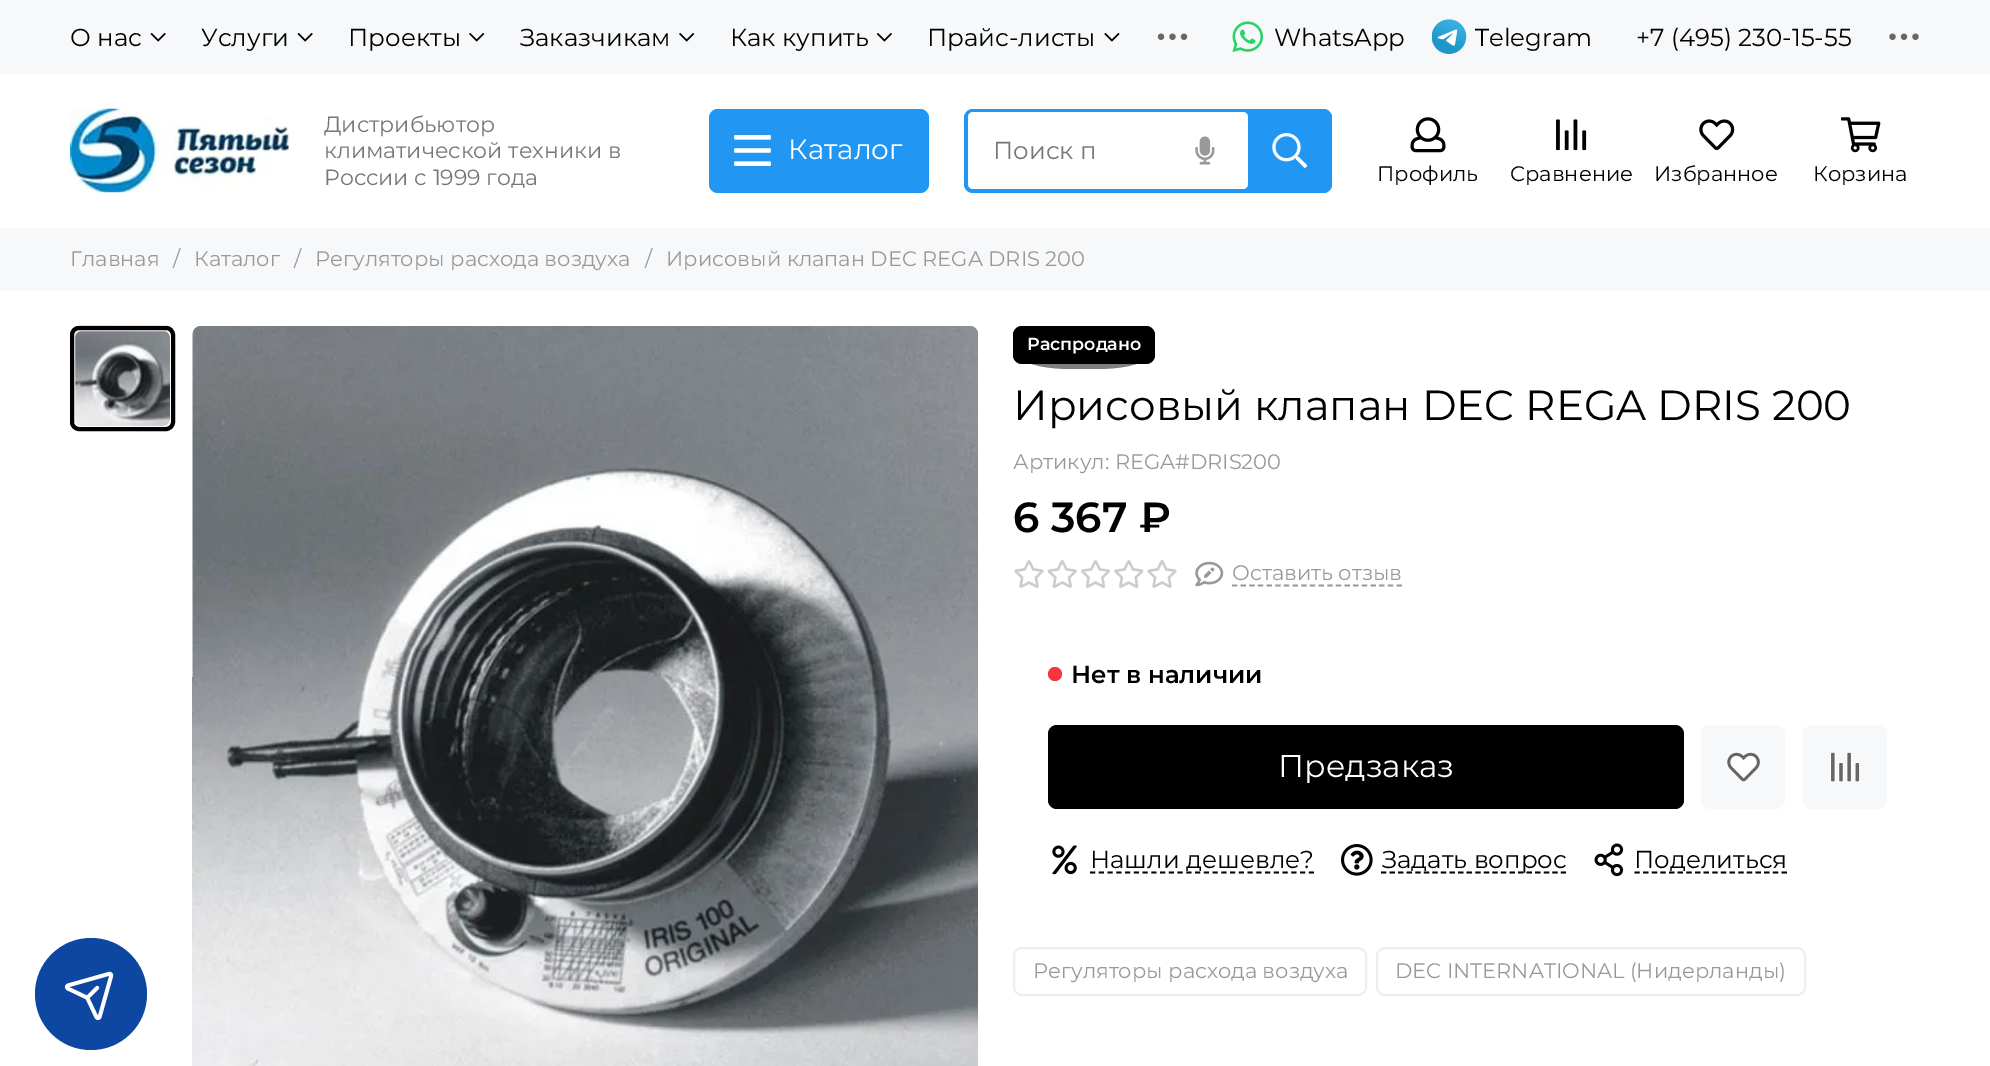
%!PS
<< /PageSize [1990 1066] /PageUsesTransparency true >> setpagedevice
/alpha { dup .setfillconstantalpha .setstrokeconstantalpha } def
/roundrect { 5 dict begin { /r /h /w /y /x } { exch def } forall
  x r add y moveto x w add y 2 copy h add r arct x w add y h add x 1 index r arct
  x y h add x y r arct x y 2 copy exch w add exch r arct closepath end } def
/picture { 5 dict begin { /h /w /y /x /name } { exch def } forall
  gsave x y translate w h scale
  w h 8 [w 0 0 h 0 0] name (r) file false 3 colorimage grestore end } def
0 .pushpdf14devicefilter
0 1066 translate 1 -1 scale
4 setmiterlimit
1 setgray
0 0 1990 1066 rectfill
0.969 0.973 0.98 setrgbcolor
0 0 1990 74 rectfill
/Montserrat-Regular [24.5 0 0 -24.5 0 0] selectfont
0 setgray
70 46 moveto (О нас) show
(img1.rgb) 150 33 16 9 picture
201 46 moveto (Услуги) show
(img1.rgb) 297 33 16 9 picture
348 46 moveto (Проекты) show
(img2.rgb) 469 33 16 9 picture
520 46 moveto (Заказчикам) show
(img2.rgb) 679 33 16 9 picture
730 46 moveto (Как купить) show
(img3.rgb) 876 33 16 9 picture
927 46 moveto (Прайс-листы) show
(img4.rgb) 1104 33 16 9 picture
(img5.rgb) 1157 33 31 7 picture
(img6.rgb) 1232 21 32 31 picture
1274 46 moveto (WhatsApp) show
(img7.rgb) 1432 19 35 35 picture
1475 46 moveto (Telegram) show
1636 46 moveto (+7 \(495\) 230-15-55) show
(img8.rgb) 1889 33 30 7 picture
(img9.rgb) 70 108 219 85 picture
/Montserrat-Regular [22 0 0 -22 0 0] selectfont
0.467 setgray
324 132 moveto (Дистрибьютор) show
324 158 moveto (климатической техники в) show
324 185 moveto (России с 1999 года) show
0.129 0.588 0.953 setrgbcolor
709 109 220 84 9 roundrect fill
(img10.rgb) 734 135 37 31 picture
/Montserrat-Regular [28 0 0 -28 0 0] selectfont
1 setgray
788 159 moveto (Каталог) show
0.129 0.588 0.953 setrgbcolor
964 109 368 84 9 roundrect fill
1 setgray
968 112 280 77 5 roundrect fill
/Montserrat-Regular [24.5 0 0 -24.5 0 0] selectfont
0.467 setgray
993 159 moveto (Поиск п) show
(img11.rgb) 1195 136 20 29 picture
0.129 0.588 0.953 setrgbcolor
newpath 1248 109 moveto 1323 109 lineto 1328 109 1332 113 1332 118 curveto 1332 184 lineto 1332 189 1328 193 1323 193 curveto 1248 193 lineto closepath fill
(img12.rgb) 1272 133 36 35 picture
(img13.rgb) 1410 117 36 36 picture
/Montserrat-Regular [21 0 0 -21 0 0] selectfont
0 setgray
1377 181 moveto (Профиль) show
(img14.rgb) 1556 119 31 32 picture
1510 181 moveto (Сравнение) show
(img15.rgb) 1699 119 36 32 picture
1654 181 moveto (Избранное) show
(img16.rgb) 1841 117 40 36 picture
1813 181 moveto (Корзина) show
0.969 0.973 0.98 setrgbcolor
0 228 1990 63 rectfill
0.6 setgray
70 266 moveto (Главная) show
173 266 moveto (/) show
194 266 moveto (Каталог) show
294 266 moveto (/) show
315 266 moveto (Регуляторы расхода воздуха) show
645 266 moveto (/) show
666 266 moveto (Ирисовый клапан DEC REGA DRIS 200) show
(img17.rgb) 70 325 105 106 picture
1 setgray
5 setlinewidth
72.5 328.5 100 100 8.5 roundrect stroke
0 setgray
4 setlinewidth
72 328 101 101 7 roundrect stroke
(img18.rgb) 192 326 786 740 picture
1013 326 142 38 9 roundrect fill
0.5 alpha
newpath 1071 334 moveto 1097 334 lineto 1125 334 1148 341 1148 348 curveto 1148 355 lineto 1148 363 1125 369 1097 369 curveto 1071 369 lineto 1043 369 1020 363 1020 355 curveto 1020 348 lineto 1020 341 1043 334 1071 334 curveto closepath fill
/Montserrat-SemiBold [17.5 0 0 -17.5 0 0] selectfont
1 alpha
1 setgray
1027 350 moveto (Распродано) show
/Montserrat-Regular [42 0 0 -42 0 0] selectfont
0 setgray
1013 420 moveto (Ирисовый клапан DEC REGA DRIS 200) show
/Montserrat-Regular [21 0 0 -21 0 0] selectfont
0.6 setgray
1013 469 moveto (Артикул: REGA#DRIS200) show
/Montserrat-SemiBold [42 0 0 -42 0 0] selectfont
0 setgray
1013 532 moveto (6 367 ₽) show
(img19.rgb) 1014 560 30 28 picture
(img20.rgb) 1047 560 30 28 picture
(img21.rgb) 1081 560 29 28 picture
(img22.rgb) 1114 560 30 28 picture
(img19.rgb) 1147 560 30 28 picture
(img23.rgb) 1195 561 29 26 picture
0.6 setgray
1.8 setlinewidth
[5.25 3.41] 0 setdash
newpath 1232 585.5 moveto 1402 585.5 lineto stroke
/Montserrat-Regular [21 0 0 -21 0 0] selectfont
1232 580 moveto (Оставить отзыв) show
0.973 0.208 0.243 setrgbcolor
newpath 1055 674 7 0 360 arc closepath fill
/Montserrat-SemiBold [24.5 0 0 -24.5 0 0] selectfont
0 setgray
1071 683 moveto (Нет в наличии) show
1048 725 636 84 9 roundrect fill
/Montserrat-Regular [31.5 0 0 -31.5 0 0] selectfont
1 setgray
1278 777 moveto (Предзаказ) show
0.969 0.973 0.98 setrgbcolor
1701 725 84 84 9 roundrect fill
(img24.rgb) 1727 752 34 30 picture
1803 725 84 84 9 roundrect fill
(img25.rgb) 1830 752 30 30 picture
(img26.rgb) 1052 845 25 30 picture
0 setgray
[5.25 3.5] 0 setdash
newpath 1090 872.5 moveto 1314 872.5 lineto stroke
/Montserrat-Regular [24.5 0 0 -24.5 0 0] selectfont
1090 868 moveto (Нашли дешевле?) show
(img27.rgb) 1341 844 32 32 picture
[5.25 3.32] 0 setdash
newpath 1381 872.5 moveto 1566 872.5 lineto stroke
1382 868 moveto (Задать вопрос) show
(img28.rgb) 1594 843 30 34 picture
[5.25 3.4] 0 setdash
newpath 1634.5 872.5 moveto 1787 872.5 lineto stroke
1634 868 moveto (Поделиться) show
0.933 setgray
2 setlinewidth
[] 0 setdash
1014 948 352 47 8 roundrect stroke
/Montserrat-Regular [21 0 0 -21 0 0] selectfont
0.6 setgray
1033 978 moveto (Регуляторы расхода воздуха) show
0.933 setgray
1377 948 428 47 8 roundrect stroke
0.6 setgray
1395 978 moveto (DEC INTERNATIONAL \(Нидерланды\)) show
0.051 0.278 0.631 setrgbcolor
newpath 91 994 56 0 360 arc closepath fill
(img29.rgb) 64 971 50 50 picture
.poppdf14devicefilter showpage
